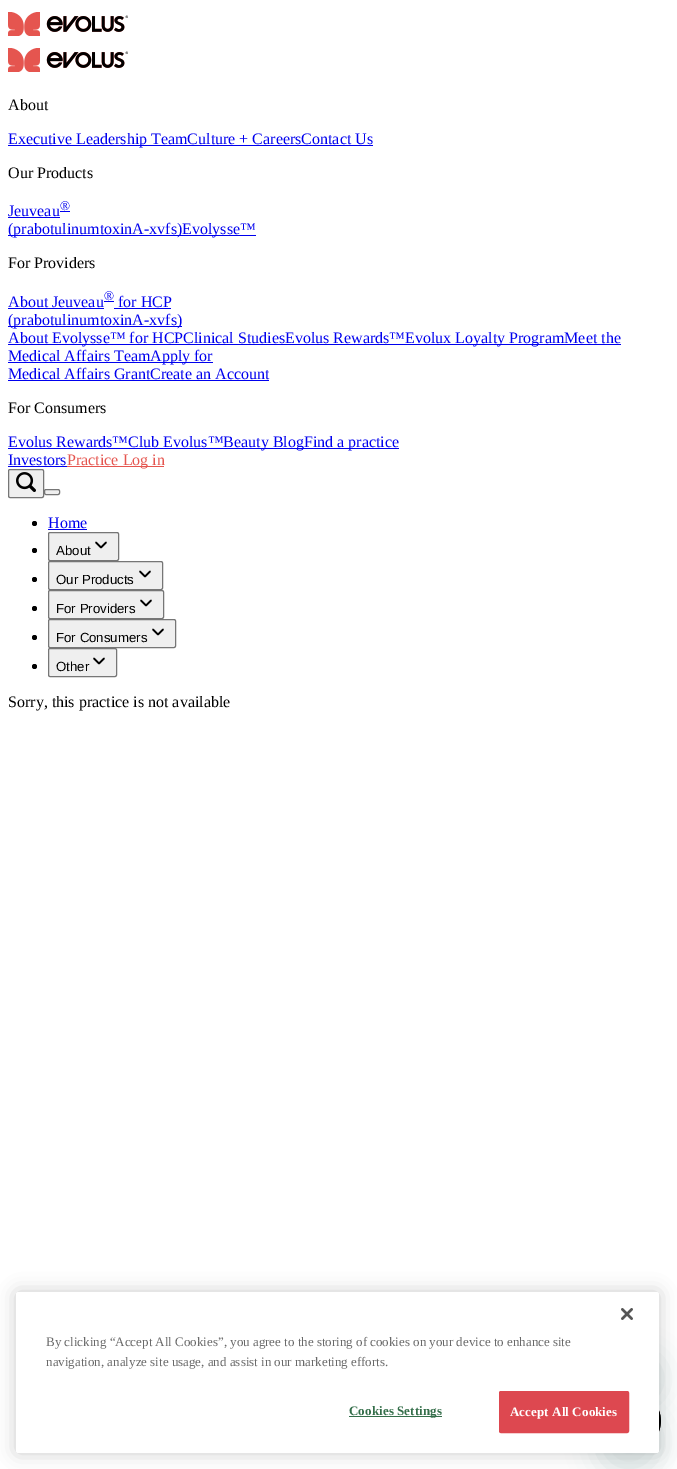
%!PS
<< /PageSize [677 1469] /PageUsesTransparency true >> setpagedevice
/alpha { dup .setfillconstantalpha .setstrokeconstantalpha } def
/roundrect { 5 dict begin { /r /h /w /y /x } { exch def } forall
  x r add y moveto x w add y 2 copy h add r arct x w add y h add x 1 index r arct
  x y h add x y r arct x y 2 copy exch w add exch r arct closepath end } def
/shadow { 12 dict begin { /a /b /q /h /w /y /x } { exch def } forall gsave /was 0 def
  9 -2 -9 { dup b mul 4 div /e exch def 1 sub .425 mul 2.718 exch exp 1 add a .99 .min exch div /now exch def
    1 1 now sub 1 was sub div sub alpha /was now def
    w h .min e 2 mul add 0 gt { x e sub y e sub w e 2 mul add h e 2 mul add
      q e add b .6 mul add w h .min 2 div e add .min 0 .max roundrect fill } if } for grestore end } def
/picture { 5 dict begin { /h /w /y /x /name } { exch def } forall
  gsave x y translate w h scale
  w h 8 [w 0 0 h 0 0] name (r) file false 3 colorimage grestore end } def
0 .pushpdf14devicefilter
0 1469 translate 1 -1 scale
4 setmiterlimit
1 setgray
0 0 677 1469 rectfill
(img1.rgb) 8 12 120 24 picture
(img1.rgb) 8 48 120 24 picture
/LiberationSerif-Regular [16 0 0 -16 0 0] selectfont
0 setgray
8 110 moveto (About) show
0 0 0.933 setrgbcolor
8 145 179 1 rectfill
8 144 moveto (Executive Leadership TeamCulture + CareersContact Us) show
187 145 186 1 rectfill
0 setgray
8 178 moveto (Our Products) show
0 0 0.933 setrgbcolor
8 216 moveto (Jeuveau) show
8 217 52 1 rectfill
60 211 10 1 rectfill
/LiberationSerif-Regular [13.25 0 0 -13.25 0 0] selectfont
60 210 moveto (®) show
8 235 248 1 rectfill
/LiberationSerif-Regular [16 0 0 -16 0 0] selectfont
8 234 moveto (\(prabotulinumtoxinA-xvfs\)Evolysse™) show
0 setgray
8 268 moveto (For Providers) show
0 0 0.933 setrgbcolor
8 307 moveto (About Jeuveau) show
8 308 96 1 rectfill
/LiberationSerif-Regular [13.25 0 0 -13.25 0 0] selectfont
104 300 moveto (®) show
104 301 10 1 rectfill
/LiberationSerif-Regular [16 0 0 -16 0 0] selectfont
118 307 moveto (for HCP) show
114 308 57 1 rectfill
8 326 174 1 rectfill
8 325 moveto (\(prabotulinumtoxinA-xvfs\)) show
8 344 613 1 rectfill
8 343 moveto (About Evolysse™ for HCPClinical StudiesEvolus Rewards™Evolux Loyalty ProgramMeet the) show
8 362 205 1 rectfill
8 361 moveto (Medical Affairs TeamApply for) show
8 379 moveto (Medical Affairs GrantCreate an Account) show
8 380 261 1 rectfill
0 setgray
8 413 moveto (For Consumers) show
0 0 0.933 setrgbcolor
8 448 391 1 rectfill
8 447 moveto (Evolus Rewards™Club Evolus™Beauty BlogFind a practice) show
8 465 moveto (Investors) show
8 466 59 1 rectfill
0.898 0.333 0.31 setrgbcolor
67 466 97 1 rectfill
67 465 moveto (Practice Log in) show
0.937 setgray
8.5 469.5 35 28 1.5 roundrect gsave fill grestore
0.463 setgray
stroke
(img2.rgb) 16 472 20 20 picture
0.937 setgray
44.5 489.5 15 5 1.5 roundrect gsave fill grestore
0.463 setgray
stroke
0 setgray
newpath 34.5 523.5 2.5 0 360 arc closepath fill
0 0 0.933 setrgbcolor
48 528 moveto (Home) show
48 529 39 1 rectfill
0 setgray
newpath 34.5 550.5 2.5 0 360 arc closepath fill
0.937 setgray
48.5 532.5 70 28 1.5 roundrect gsave fill grestore
0.463 setgray
stroke
/LiberationSans-Regular [13.25 0 0 -13.25 0 0] selectfont
0 setgray
56 555 moveto (About) show
0.937 setgray
48.5 561.5 114 28 1.5 roundrect gsave fill grestore
0.463 setgray
stroke
0 setgray
1.7 setlinewidth
1 setlinecap
1 setlinejoin
newpath 96 542.5 moveto 101 547.5 lineto 106 542.5 lineto 140 571.5 moveto 145 576.5 lineto 150 571.5 lineto stroke
newpath 34.5 579.5 2.5 0 360 arc closepath fill
56 584 moveto (Our Products) show
newpath 34.5 608.5 2.5 0 360 arc closepath fill
0.937 setgray
48.5 590.5 115 28 1.5 roundrect gsave fill grestore
0.463 setgray
1 setlinewidth
0 setlinecap
0 setlinejoin
stroke
0 setgray
56 613 moveto (For Providers) show
0.937 setgray
48.5 619.5 127 28 1.5 roundrect gsave fill grestore
0.463 setgray
stroke
0 setgray
1.7 setlinewidth
1 setlinecap
1 setlinejoin
newpath 141 600.5 moveto 146 605.5 lineto 151 600.5 lineto 153 629.5 moveto 158 634.5 lineto 163 629.5 lineto stroke
newpath 34.5 637.5 2.5 0 360 arc closepath fill
56 642 moveto (For Consumers) show
newpath 34.5 666.5 2.5 0 360 arc closepath fill
0.937 setgray
48.5 648.5 68 28 1.5 roundrect gsave fill grestore
0.463 setgray
1 setlinewidth
0 setlinecap
0 setlinejoin
stroke
0 setgray
56 671 moveto (Other) show
1.7 setlinewidth
1 setlinecap
1 setlinejoin
newpath 94 658.5 moveto 99 663.5 lineto 104 658.5 lineto stroke
/LiberationSerif-Regular [16 0 0 -16 0 0] selectfont
8 707 moveto (Sorry, this practice is not available) show
0.09 0.286 0.302 setrgbcolor
392 1357 269 44 20 15 0.15 shadow
597 1409 64 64 32 15 0.15 shadow
(img3.rgb) 659 1410 2 22 picture
0 setgray
16 1292 643 161 2.5 9 0.2 shadow
1 setgray
16 1292 643 161 2.5 roundrect fill
(img4.rgb) 621 1308 12 12 picture
/LiberationSerif-Regular [13 0 0 -13 0 0] selectfont
0.412 setgray
46 1346 moveto (By clicking “Accept All Cookies”, you agree to the storing of cookies on your device to enhance site) show
46 1366 moveto (navigation, analyze site usage, and assist in our marketing efforts.) show
0.204 0.431 0.29 setrgbcolor
349 1416 93 1 rectfill
/LiberationSerif-Bold [13 0 0 -13 0 0] selectfont
349 1415 moveto 0.1 0 (Cookies Settings) ashow
0.867 0.282 0.314 setrgbcolor
499.5 1391.5 129 41 1.5 roundrect gsave fill grestore
1 setlinewidth
0 setlinecap
0 setlinejoin
stroke
1 setgray
510 1416 moveto 0.1 0 (Accept All Cookies) ashow
.poppdf14devicefilter showpage
